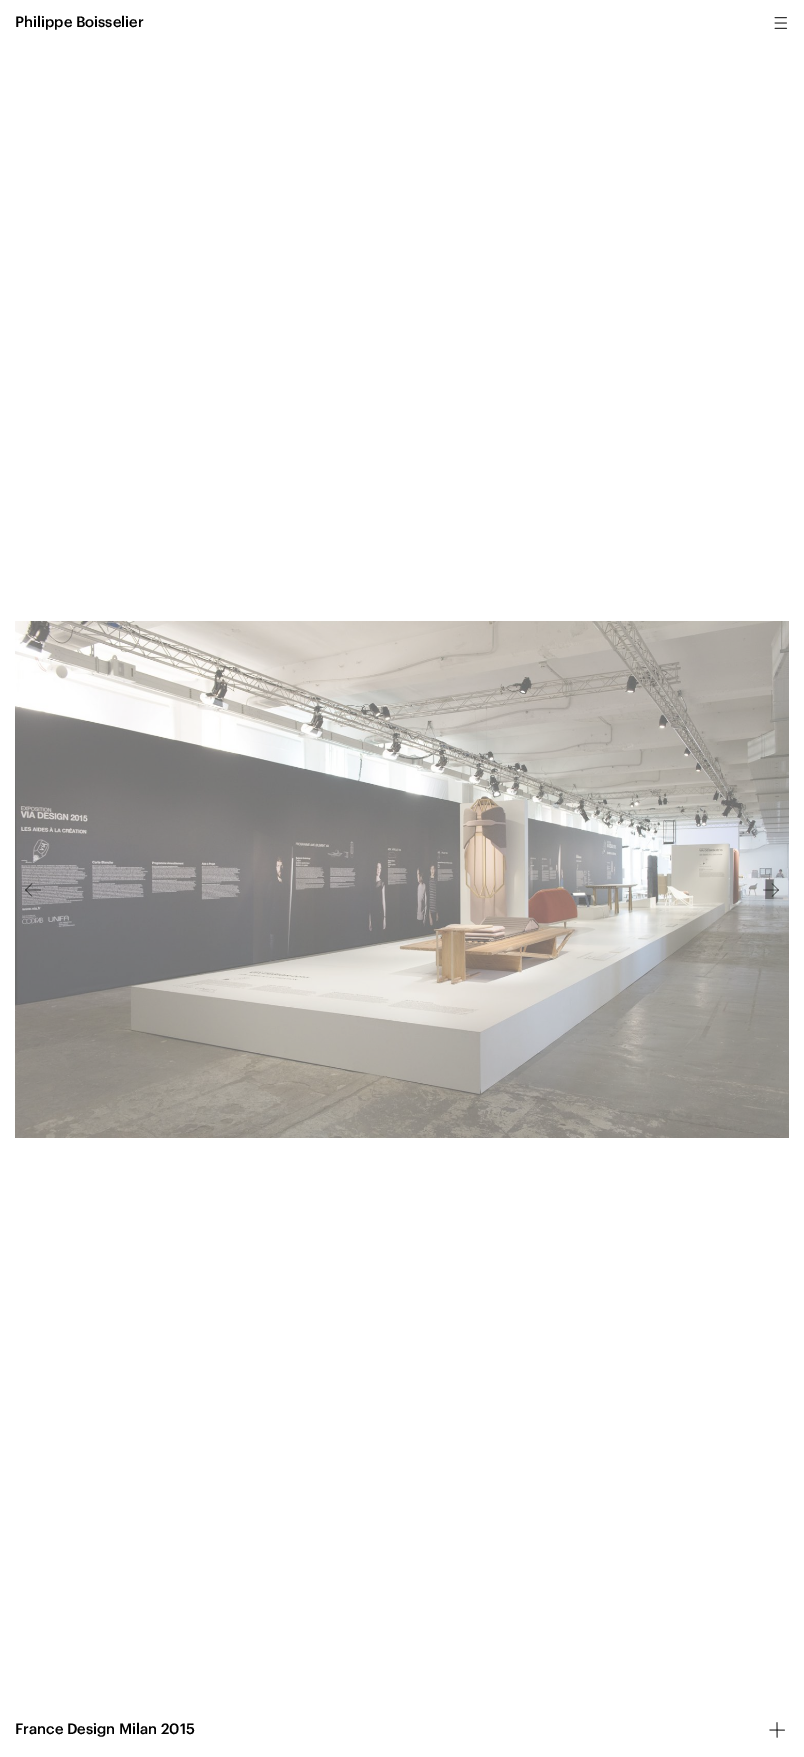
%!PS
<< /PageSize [804 1757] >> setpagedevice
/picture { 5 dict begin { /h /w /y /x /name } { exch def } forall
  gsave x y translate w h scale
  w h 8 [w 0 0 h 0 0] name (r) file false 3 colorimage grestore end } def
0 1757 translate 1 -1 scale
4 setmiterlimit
1 setgray
0 0 804 1757 rectfill
/Graphik-Medium [14.75 0 0 -14.75 0 0] selectfont
0 setgray
15 27 moveto (Philippe Boisselier) show
(img1.rgb) 774 17 14 12 picture
(img2.rgb) 15 621 774 517 picture
(img3.rgb) 25 883 16 14 picture
(img4.rgb) 763 883 16 14 picture
15 1734 moveto (France Design Milan 2015) show
(img5.rgb) 769 1722 16 16 picture
showpage
